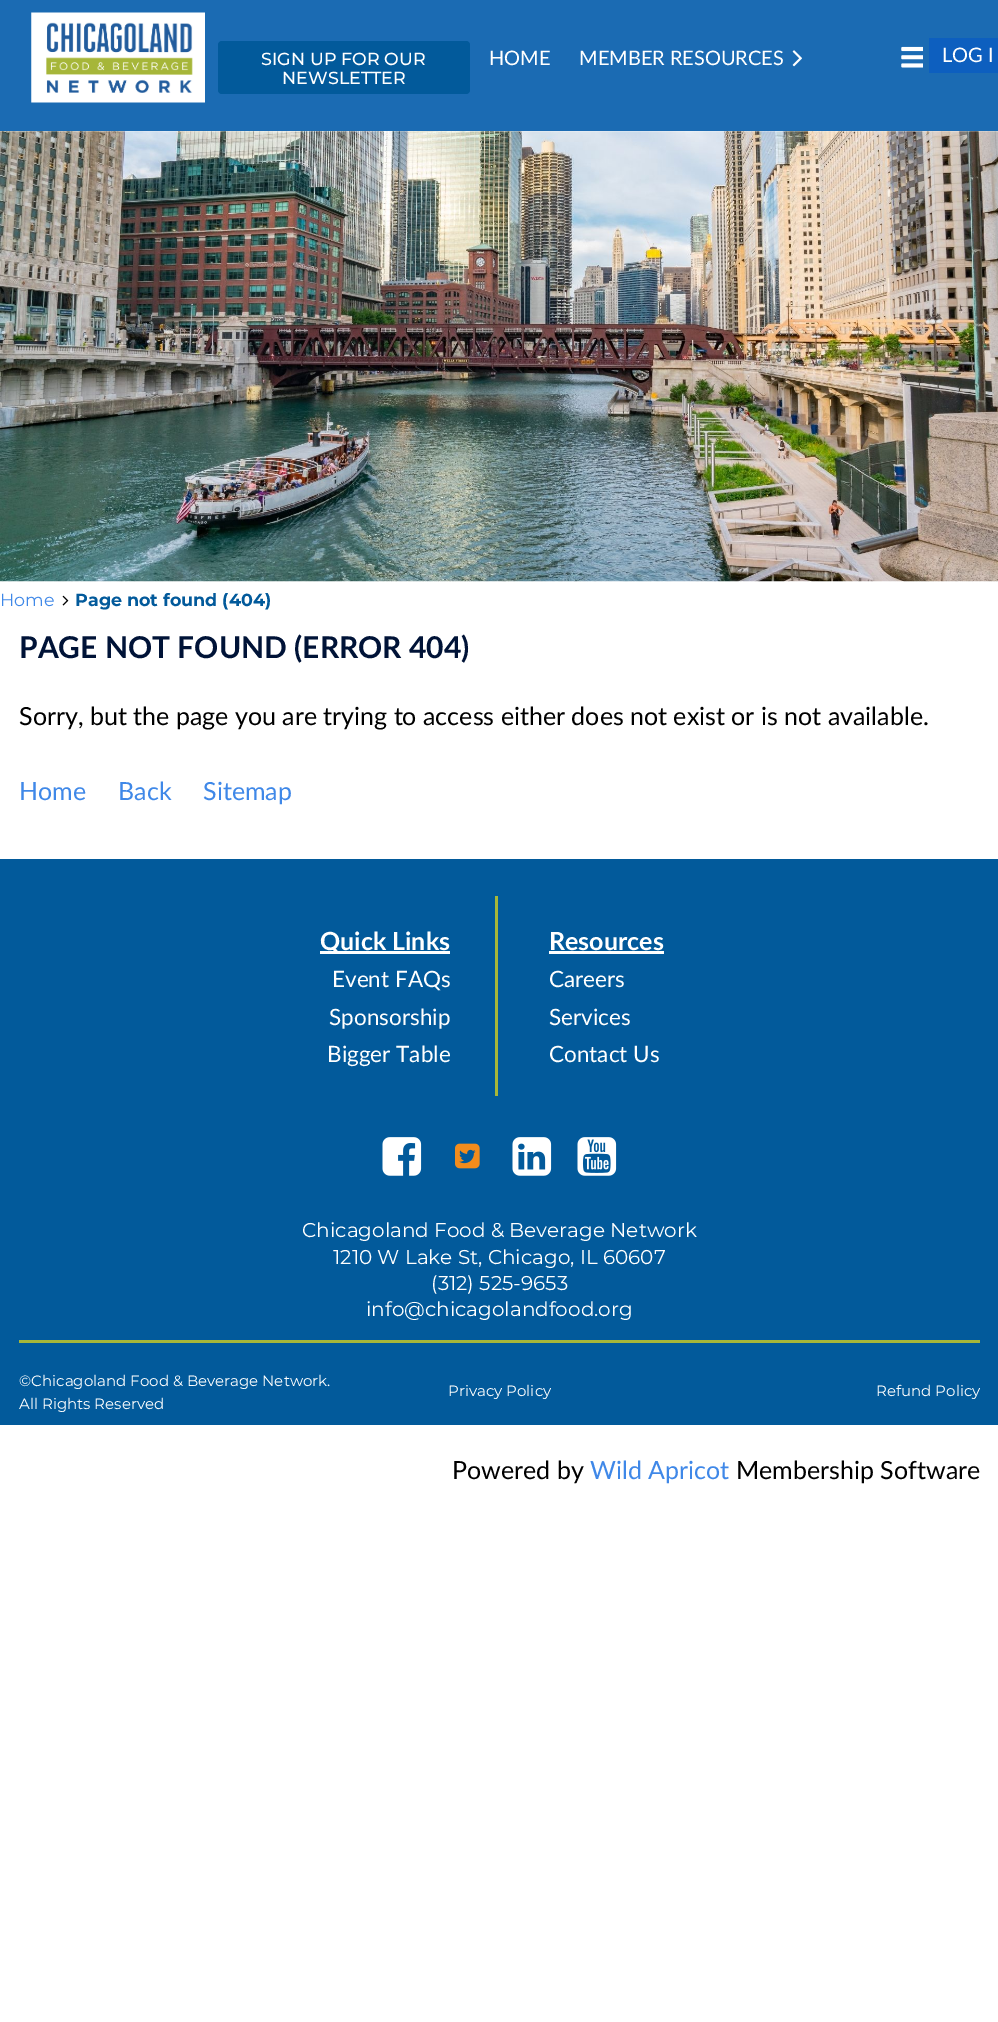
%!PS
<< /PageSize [998 2022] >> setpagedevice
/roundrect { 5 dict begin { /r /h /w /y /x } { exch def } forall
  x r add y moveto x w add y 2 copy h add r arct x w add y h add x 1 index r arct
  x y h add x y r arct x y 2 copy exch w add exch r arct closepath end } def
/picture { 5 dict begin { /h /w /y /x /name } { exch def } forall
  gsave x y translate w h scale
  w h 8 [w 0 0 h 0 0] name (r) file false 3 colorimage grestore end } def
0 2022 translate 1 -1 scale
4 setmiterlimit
1 setgray
0 0 998 2022 rectfill
0.106 0.42 0.702 setrgbcolor
0 0 998 131 rectfill
(img1.rgb) 31 12 174 91 picture
0.008 0.353 0.608 setrgbcolor
218 41 252 53 4 roundrect fill
/Montserrat-Medium [17.5 0 0 -17.5 0 0] selectfont
1 setgray
261 65 moveto (SIGN UP FOR OUR) show
282 84 moveto (NEWSLETTER) show
/Lato-Regular [20 0 0 -20 0 0] selectfont
489 65 moveto (HOME) show
579 65 moveto (MEMBER RESOURCES) show
(img2.rgb) 792 50 10 17 picture
(img3.rgb) 901 46 22 22 picture
0.051 0.373 0.749 setrgbcolor
929 38 69 35 rectfill
1 setgray
942 62 moveto (LOG I) show
(img4.rgb) 0 131 998 451 picture
/Montserrat-Regular [17.5 0 0 -17.5 0 0] selectfont
0.247 0.533 0.91 setrgbcolor
0 606 moveto (Home) show
(img5.rgb) 62 595 7 11 picture
/Montserrat-Bold [17.5 0 0 -17.5 0 0] selectfont
0.008 0.353 0.608 setrgbcolor
75 606 moveto (Page not found \(404\)) show
/Lato-Bold [30 0 0 -30 0 0] selectfont
0 0.075 0.216 setrgbcolor
19 658 moveto (PAGE NOT FOUND \(ERROR 404\)) show
/Lato-Regular [25 0 0 -25 0 0] selectfont
0 setgray
19 725 moveto (Sorry, but the page you are trying to access either does not exist or is not available.) show
0.247 0.533 0.91 setrgbcolor
19 800 moveto (Home) show
118 800 moveto (Back) show
203 800 moveto (Sitemap) show
0.008 0.353 0.608 setrgbcolor
0 859 998 566 rectfill
1 setgray
320 951 130 3 rectfill
/Lato-Bold [25 0 0 -25 0 0] selectfont
320 950 moveto (Quick Links) show
/Lato-Regular [22.5 0 0 -22.5 0 0] selectfont
332 987 moveto (Event FAQs) show
329 1025 moveto (Sponsorship) show
327 1062 moveto (Bigger Table) show
0.655 0.718 0.224 setrgbcolor
495 896 3 200 rectfill
/Lato-Bold [25 0 0 -25 0 0] selectfont
1 setgray
549 950 moveto (Resources) show
549 951 115 3 rectfill
/Lato-Regular [22.5 0 0 -22.5 0 0] selectfont
549 987 moveto (Careers) show
549 1025 moveto (Services) show
549 1062 moveto (Contact Us) show
(img6.rgb) 382 1137 40 39 picture
(img7.rgb) 455 1143 25 26 picture
(img8.rgb) 512 1137 40 39 picture
(img9.rgb) 577 1137 40 39 picture
/Montserrat-Regular [20 0 0 -20 0 0] selectfont
302 1237 moveto (Chicagoland Food & Beverage Network) show
333 1264 moveto (1210 W Lake St, Chicago, IL 60607) show
431 1290 moveto (\(312\) 525-9653) show
366 1316 moveto (info@chicagolandfood.org) show
0.655 0.718 0.224 setrgbcolor
19 1340 961 3 rectfill
/Montserrat-Regular [15 0 0 -15 0 0] selectfont
1 setgray
19 1386 moveto (©Chicagoland Food & Beverage Network.) show
19 1409 moveto (All Rights Reserved) show
448 1396 moveto (Privacy Policy) show
876 1396 moveto (Refund Policy) show
/Lato-Regular [25 0 0 -25 0 0] selectfont
0 setgray
452 1479 moveto (Powered by) show
0.247 0.533 0.91 setrgbcolor
590 1479 moveto (Wild Apricot) show
0 setgray
736 1479 moveto (Membership Software) show
showpage
